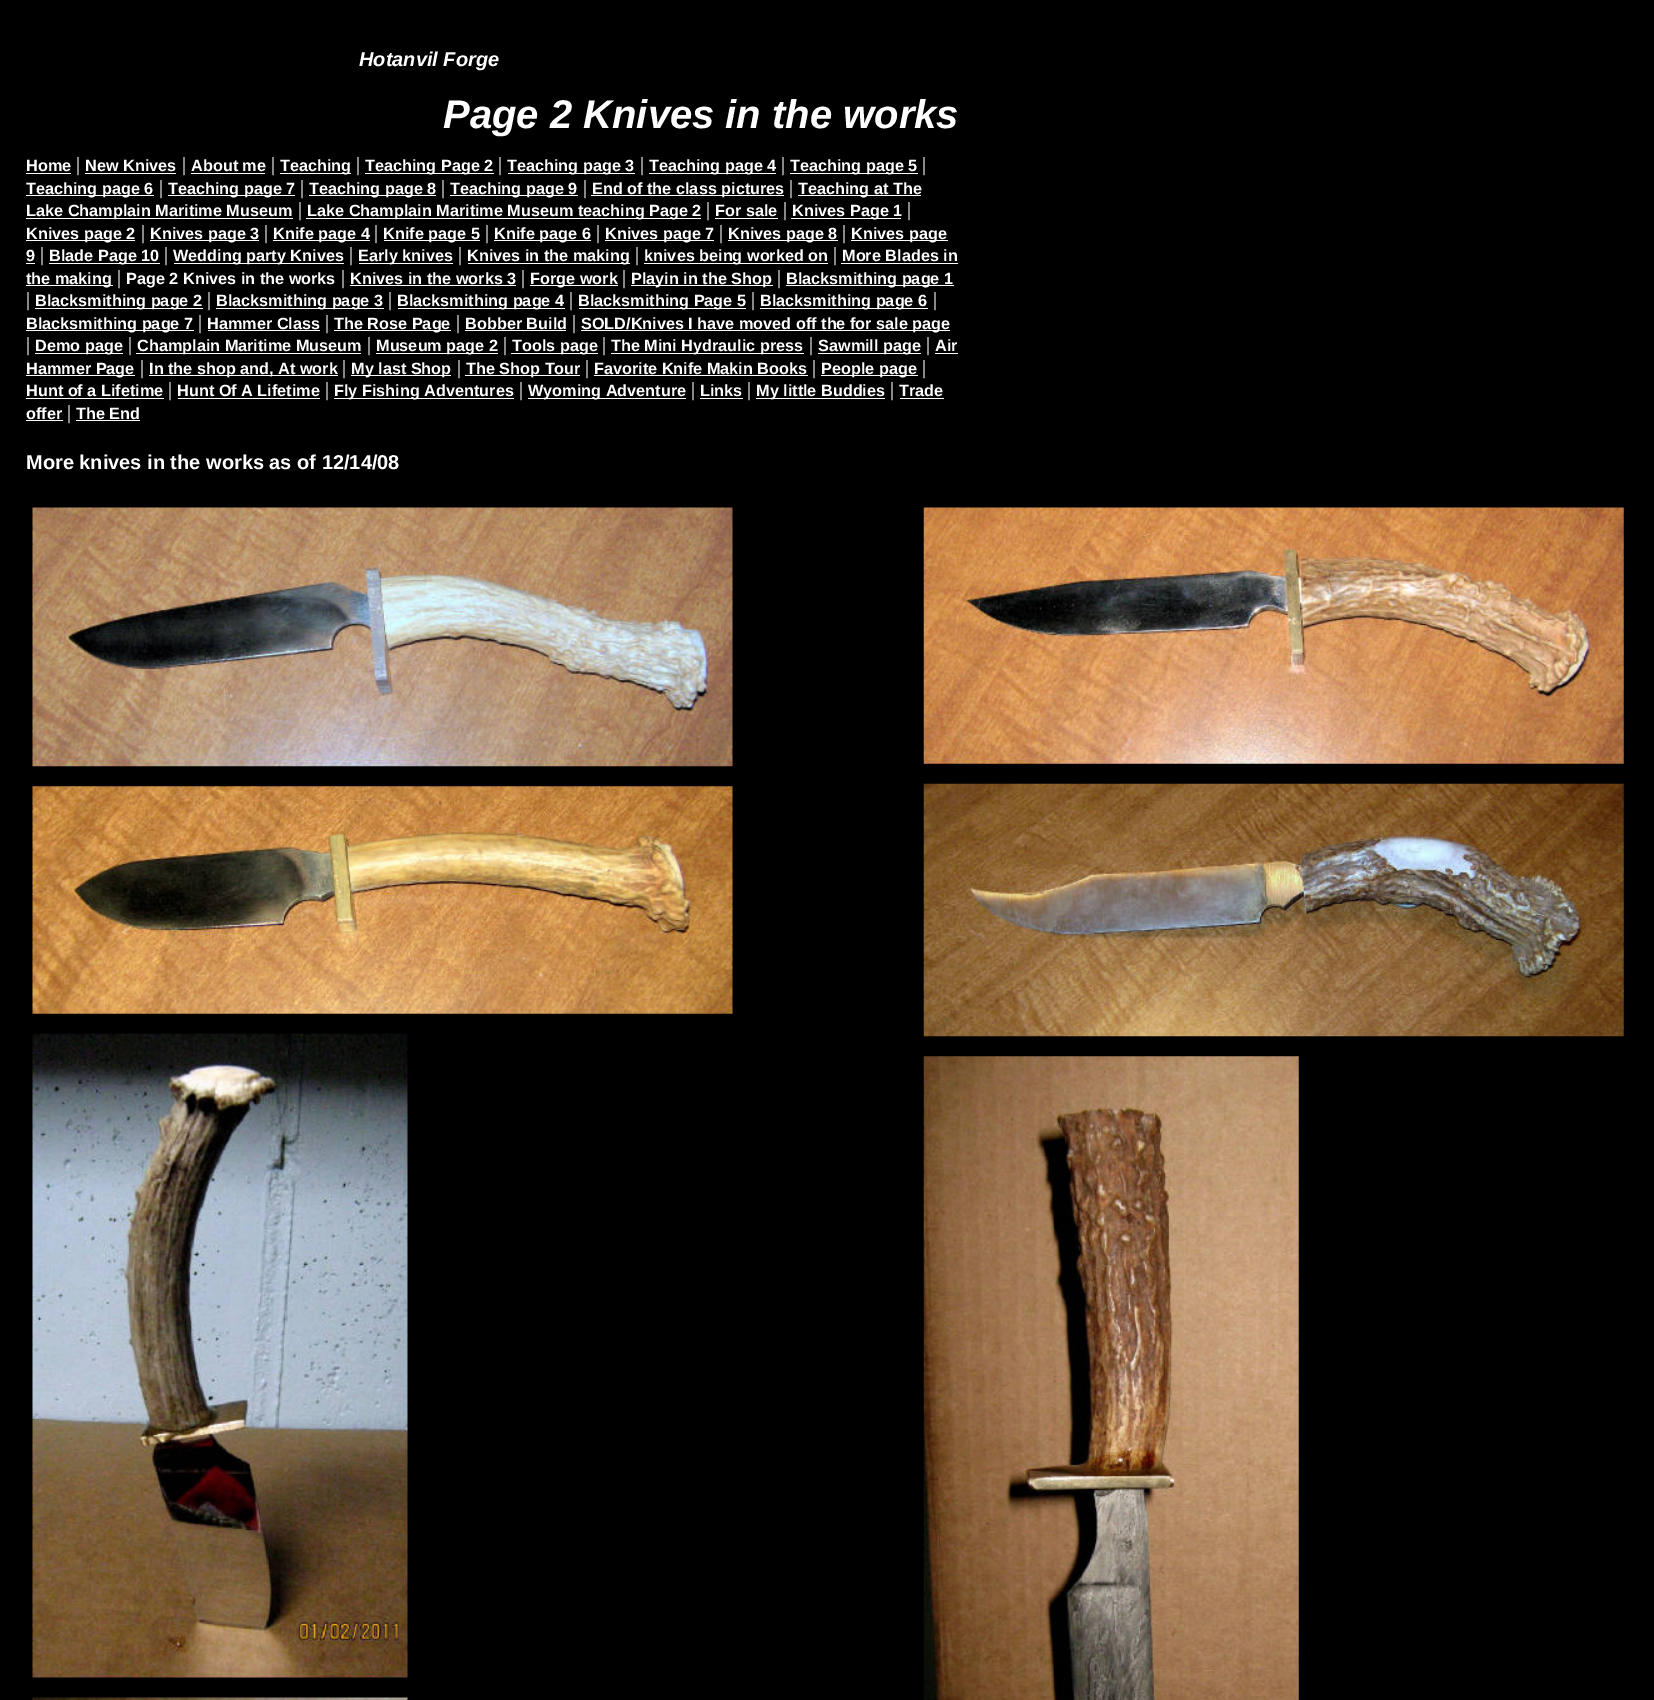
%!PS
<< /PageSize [1654 1700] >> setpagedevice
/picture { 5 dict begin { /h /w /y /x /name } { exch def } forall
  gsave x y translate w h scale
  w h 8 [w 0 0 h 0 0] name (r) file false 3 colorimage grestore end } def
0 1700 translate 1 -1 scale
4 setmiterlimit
0 setgray
0 0 1654 1700 rectfill
/LiberationSans-BoldItalic [20 0 0 -20 0 0] selectfont
1 setgray
359 66 moveto (Hotanvil Forge) show
/LiberationSans-BoldItalic [40 0 0 -40 0 0] selectfont
443 128 moveto (Page 2 Knives in the works) show
/LiberationSans-Bold [16.25 0 0 -16.25 0 0] selectfont
26 171 moveto (Home) show
26 173 45 1 rectfill
/LiberationSerif-Regular [20 0 0 -20 0 0] selectfont
76 171 moveto (|) show
/LiberationSans-Bold [16.25 0 0 -16.25 0 0] selectfont
85 171 moveto (New Knives) show
85 173 91 1 rectfill
/LiberationSerif-Regular [20 0 0 -20 0 0] selectfont
182 171 moveto (|) show
/LiberationSans-Bold [16.25 0 0 -16.25 0 0] selectfont
191 171 moveto (About me) show
191 173 74 1 rectfill
/LiberationSerif-Regular [20 0 0 -20 0 0] selectfont
271 171 moveto (|) show
280 173 71 1 rectfill
/LiberationSans-Bold [16.25 0 0 -16.25 0 0] selectfont
280 171 moveto (Teaching) show
/LiberationSerif-Regular [20 0 0 -20 0 0] selectfont
356 171 moveto (|) show
365 173 129 1 rectfill
/LiberationSans-Bold [16.25 0 0 -16.25 0 0] selectfont
365 171 moveto (Teaching Page 2) show
/LiberationSerif-Regular [20 0 0 -20 0 0] selectfont
498 171 moveto (|) show
508 173 127 1 rectfill
/LiberationSans-Bold [16.25 0 0 -16.25 0 0] selectfont
507 171 moveto (Teaching page 3) show
/LiberationSerif-Regular [20 0 0 -20 0 0] selectfont
640 171 moveto (|) show
649 173 127 1 rectfill
/LiberationSans-Bold [16.25 0 0 -16.25 0 0] selectfont
649 171 moveto (Teaching page 4) show
/LiberationSerif-Regular [20 0 0 -20 0 0] selectfont
781 171 moveto (|) show
790 173 128 1 rectfill
/LiberationSans-Bold [16.25 0 0 -16.25 0 0] selectfont
790 171 moveto (Teaching page 5) show
/LiberationSerif-Regular [20 0 0 -20 0 0] selectfont
922 171 moveto (|) show
26 195 128 1 rectfill
/LiberationSans-Bold [16.25 0 0 -16.25 0 0] selectfont
26 194 moveto (Teaching page 6) show
/LiberationSerif-Regular [20 0 0 -20 0 0] selectfont
159 194 moveto (|) show
168 195 127 1 rectfill
/LiberationSans-Bold [16.25 0 0 -16.25 0 0] selectfont
168 194 moveto (Teaching page 7) show
/LiberationSerif-Regular [20 0 0 -20 0 0] selectfont
300 194 moveto (|) show
309 195 127 1 rectfill
/LiberationSans-Bold [16.25 0 0 -16.25 0 0] selectfont
309 194 moveto (Teaching page 8) show
/LiberationSerif-Regular [20 0 0 -20 0 0] selectfont
441 194 moveto (|) show
450 195 128 1 rectfill
/LiberationSans-Bold [16.25 0 0 -16.25 0 0] selectfont
450 194 moveto (Teaching page 9) show
/LiberationSerif-Regular [20 0 0 -20 0 0] selectfont
583 194 moveto (|) show
591 195 193 1 rectfill
/LiberationSans-Bold [16.25 0 0 -16.25 0 0] selectfont
592 194 moveto (End of the class pictures) show
/LiberationSerif-Regular [20 0 0 -20 0 0] selectfont
789 194 moveto (|) show
798 195 123 1 rectfill
/LiberationSans-Bold [16.25 0 0 -16.25 0 0] selectfont
798 194 moveto (Teaching at The) show
26 218 267 1 rectfill
26 216 moveto (Lake Champlain Maritime Museum) show
/LiberationSerif-Regular [20 0 0 -20 0 0] selectfont
298 216 moveto (|) show
306 218 395 1 rectfill
/LiberationSans-Bold [16.25 0 0 -16.25 0 0] selectfont
307 216 moveto (Lake Champlain Maritime Museum teaching Page 2) show
/LiberationSerif-Regular [20 0 0 -20 0 0] selectfont
706 216 moveto (|) show
/LiberationSans-Bold [16.25 0 0 -16.25 0 0] selectfont
715 216 moveto (For sale) show
715 218 63 1 rectfill
/LiberationSerif-Regular [20 0 0 -20 0 0] selectfont
783 216 moveto (|) show
791 218 110 1 rectfill
/LiberationSans-Bold [16.25 0 0 -16.25 0 0] selectfont
792 216 moveto (Knives Page 1) show
/LiberationSerif-Regular [20 0 0 -20 0 0] selectfont
907 216 moveto (|) show
26 240 109 1 rectfill
/LiberationSans-Bold [16.25 0 0 -16.25 0 0] selectfont
26 239 moveto (Knives page 2) show
/LiberationSerif-Regular [20 0 0 -20 0 0] selectfont
141 239 moveto (|) show
150 240 109 1 rectfill
/LiberationSans-Bold [16.25 0 0 -16.25 0 0] selectfont
150 239 moveto (Knives page 3) show
/LiberationSerif-Regular [20 0 0 -20 0 0] selectfont
264 239 moveto (|) show
273 240 97 1 rectfill
/LiberationSans-Bold [16.25 0 0 -16.25 0 0] selectfont
273 239 moveto (Knife page 4) show
/LiberationSerif-Regular [20 0 0 -20 0 0] selectfont
374 239 moveto (|) show
384 240 96 1 rectfill
/LiberationSans-Bold [16.25 0 0 -16.25 0 0] selectfont
383 239 moveto (Knife page 5) show
/LiberationSerif-Regular [20 0 0 -20 0 0] selectfont
485 239 moveto (|) show
494 240 97 1 rectfill
/LiberationSans-Bold [16.25 0 0 -16.25 0 0] selectfont
494 239 moveto (Knife page 6) show
/LiberationSerif-Regular [20 0 0 -20 0 0] selectfont
596 239 moveto (|) show
605 240 109 1 rectfill
/LiberationSans-Bold [16.25 0 0 -16.25 0 0] selectfont
605 239 moveto (Knives page 7) show
/LiberationSerif-Regular [20 0 0 -20 0 0] selectfont
719 239 moveto (|) show
728 240 110 1 rectfill
/LiberationSans-Bold [16.25 0 0 -16.25 0 0] selectfont
728 239 moveto (Knives page 8) show
/LiberationSerif-Regular [20 0 0 -20 0 0] selectfont
842 239 moveto (|) show
851 240 97 1 rectfill
/LiberationSans-Bold [16.25 0 0 -16.25 0 0] selectfont
851 239 moveto (Knives page) show
26 261 moveto (9) show
26 263 9 1 rectfill
/LiberationSerif-Regular [20 0 0 -20 0 0] selectfont
40 261 moveto (|) show
49 263 111 1 rectfill
/LiberationSans-Bold [16.25 0 0 -16.25 0 0] selectfont
49 261 moveto (Blade Page 10) show
/LiberationSerif-Regular [20 0 0 -20 0 0] selectfont
164 261 moveto (|) show
174 263 170 1 rectfill
/LiberationSans-Bold [16.25 0 0 -16.25 0 0] selectfont
173 261 moveto (Wedding party Knives) show
/LiberationSerif-Regular [20 0 0 -20 0 0] selectfont
349 261 moveto (|) show
359 263 94 1 rectfill
/LiberationSans-Bold [16.25 0 0 -16.25 0 0] selectfont
358 261 moveto (Early knives) show
/LiberationSerif-Regular [20 0 0 -20 0 0] selectfont
458 261 moveto (|) show
468 263 162 1 rectfill
/LiberationSans-Bold [16.25 0 0 -16.25 0 0] selectfont
467 261 moveto (Knives in the making) show
/LiberationSerif-Regular [20 0 0 -20 0 0] selectfont
635 261 moveto (|) show
644 263 184 1 rectfill
/LiberationSans-Bold [16.25 0 0 -16.25 0 0] selectfont
644 261 moveto (knives being worked on) show
/LiberationSerif-Regular [20 0 0 -20 0 0] selectfont
833 261 moveto (|) show
/LiberationSans-Bold [16.25 0 0 -16.25 0 0] selectfont
842 261 moveto (More Blades in) show
841 263 117 1 rectfill
26 285 87 1 rectfill
26 284 moveto (the making) show
/LiberationSerif-Regular [20 0 0 -20 0 0] selectfont
117 284 moveto (|) show
/LiberationSans-Bold [16.25 0 0 -16.25 0 0] selectfont
126 284 moveto (Page 2 Knives in the works) show
/LiberationSerif-Regular [20 0 0 -20 0 0] selectfont
341 284 moveto (|) show
/LiberationSans-Bold [16.25 0 0 -16.25 0 0] selectfont
350 284 moveto (Knives in the works 3) show
350 285 166 1 rectfill
/LiberationSerif-Regular [20 0 0 -20 0 0] selectfont
521 284 moveto (|) show
530 285 88 1 rectfill
/LiberationSans-Bold [16.25 0 0 -16.25 0 0] selectfont
530 284 moveto (Forge work) show
/LiberationSerif-Regular [20 0 0 -20 0 0] selectfont
622 284 moveto (|) show
631 285 142 1 rectfill
/LiberationSans-Bold [16.25 0 0 -16.25 0 0] selectfont
631 284 moveto (Playin in the Shop) show
/LiberationSerif-Regular [20 0 0 -20 0 0] selectfont
777 284 moveto (|) show
786 285 168 1 rectfill
/LiberationSans-Bold [16.25 0 0 -16.25 0 0] selectfont
786 284 moveto (Blacksmithing page 1) show
/LiberationSerif-Regular [20 0 0 -20 0 0] selectfont
26 306 moveto (|) show
35 308 168 1 rectfill
/LiberationSans-Bold [16.25 0 0 -16.25 0 0] selectfont
35 306 moveto (Blacksmithing page 2) show
/LiberationSerif-Regular [20 0 0 -20 0 0] selectfont
207 306 moveto (|) show
216 308 168 1 rectfill
/LiberationSans-Bold [16.25 0 0 -16.25 0 0] selectfont
216 306 moveto (Blacksmithing page 3) show
/LiberationSerif-Regular [20 0 0 -20 0 0] selectfont
388 306 moveto (|) show
398 308 167 1 rectfill
/LiberationSans-Bold [16.25 0 0 -16.25 0 0] selectfont
397 306 moveto (Blacksmithing page 4) show
/LiberationSerif-Regular [20 0 0 -20 0 0] selectfont
569 306 moveto (|) show
579 308 167 1 rectfill
/LiberationSans-Bold [16.25 0 0 -16.25 0 0] selectfont
578 306 moveto (Blacksmithing Page 5) show
/LiberationSerif-Regular [20 0 0 -20 0 0] selectfont
751 306 moveto (|) show
760 308 168 1 rectfill
/LiberationSans-Bold [16.25 0 0 -16.25 0 0] selectfont
760 306 moveto (Blacksmithing page 6) show
/LiberationSerif-Regular [20 0 0 -20 0 0] selectfont
933 306 moveto (|) show
26 330 168 1 rectfill
/LiberationSans-Bold [16.25 0 0 -16.25 0 0] selectfont
26 329 moveto (Blacksmithing page 7) show
/LiberationSerif-Regular [20 0 0 -20 0 0] selectfont
198 329 moveto (|) show
/LiberationSans-Bold [16.25 0 0 -16.25 0 0] selectfont
207 329 moveto (Hammer Class) show
208 330 112 1 rectfill
/LiberationSerif-Regular [20 0 0 -20 0 0] selectfont
325 329 moveto (|) show
334 330 117 1 rectfill
/LiberationSans-Bold [16.25 0 0 -16.25 0 0] selectfont
334 329 moveto (The Rose Page) show
/LiberationSerif-Regular [20 0 0 -20 0 0] selectfont
456 329 moveto (|) show
/LiberationSans-Bold [16.25 0 0 -16.25 0 0] selectfont
465 329 moveto (Bobber Build) show
465 330 101 1 rectfill
/LiberationSerif-Regular [20 0 0 -20 0 0] selectfont
572 329 moveto (|) show
581 330 369 1 rectfill
/LiberationSans-Bold [16.25 0 0 -16.25 0 0] selectfont
581 329 moveto (SOLD/Knives I have moved off the for sale page) show
/LiberationSerif-Regular [20 0 0 -20 0 0] selectfont
26 351 moveto (|) show
35 353 88 1 rectfill
/LiberationSans-Bold [16.25 0 0 -16.25 0 0] selectfont
35 351 moveto (Demo page) show
/LiberationSerif-Regular [20 0 0 -20 0 0] selectfont
128 351 moveto (|) show
136 353 225 1 rectfill
/LiberationSans-Bold [16.25 0 0 -16.25 0 0] selectfont
137 351 moveto (Champlain Maritime Museum) show
/LiberationSerif-Regular [20 0 0 -20 0 0] selectfont
367 351 moveto (|) show
376 353 122 1 rectfill
/LiberationSans-Bold [16.25 0 0 -16.25 0 0] selectfont
376 351 moveto (Museum page 2) show
/LiberationSerif-Regular [20 0 0 -20 0 0] selectfont
503 351 moveto (|) show
511 353 87 1 rectfill
/LiberationSans-Bold [16.25 0 0 -16.25 0 0] selectfont
512 351 moveto (Tools page) show
/LiberationSerif-Regular [20 0 0 -20 0 0] selectfont
602 351 moveto (|) show
611 353 193 1 rectfill
/LiberationSans-Bold [16.25 0 0 -16.25 0 0] selectfont
611 351 moveto (The Mini Hydraulic press) show
/LiberationSerif-Regular [20 0 0 -20 0 0] selectfont
809 351 moveto (|) show
818 353 103 1 rectfill
/LiberationSans-Bold [16.25 0 0 -16.25 0 0] selectfont
818 351 moveto (Sawmill page) show
/LiberationSerif-Regular [20 0 0 -20 0 0] selectfont
926 351 moveto (|) show
/LiberationSans-Bold [16.25 0 0 -16.25 0 0] selectfont
935 351 moveto (Air) show
935 353 23 1 rectfill
26 375 109 1 rectfill
26 374 moveto (Hammer Page) show
/LiberationSerif-Regular [20 0 0 -20 0 0] selectfont
140 374 moveto (|) show
149 375 189 1 rectfill
/LiberationSans-Bold [16.25 0 0 -16.25 0 0] selectfont
149 374 moveto (In the shop and, At work) show
/LiberationSerif-Regular [20 0 0 -20 0 0] selectfont
342 374 moveto (|) show
351 375 100 1 rectfill
/LiberationSans-Bold [16.25 0 0 -16.25 0 0] selectfont
351 374 moveto (My last Shop) show
/LiberationSerif-Regular [20 0 0 -20 0 0] selectfont
457 374 moveto (|) show
465 375 115 1 rectfill
/LiberationSans-Bold [16.25 0 0 -16.25 0 0] selectfont
466 374 moveto (The Shop Tour) show
/LiberationSerif-Regular [20 0 0 -20 0 0] selectfont
585 374 moveto (|) show
/LiberationSans-Bold [16.25 0 0 -16.25 0 0] selectfont
594 374 moveto (Favorite Knife Makin Books) show
594 375 214 1 rectfill
/LiberationSerif-Regular [20 0 0 -20 0 0] selectfont
812 374 moveto (|) show
821 375 97 1 rectfill
/LiberationSans-Bold [16.25 0 0 -16.25 0 0] selectfont
821 374 moveto (People page) show
/LiberationSerif-Regular [20 0 0 -20 0 0] selectfont
922 374 moveto (|) show
/LiberationSans-Bold [16.25 0 0 -16.25 0 0] selectfont
26 396 moveto (Hunt of a Lifetime) show
26 398 138 1 rectfill
/LiberationSerif-Regular [20 0 0 -20 0 0] selectfont
168 396 moveto (|) show
/LiberationSans-Bold [16.25 0 0 -16.25 0 0] selectfont
177 396 moveto (Hunt Of A Lifetime) show
178 398 142 1 rectfill
/LiberationSerif-Regular [20 0 0 -20 0 0] selectfont
325 396 moveto (|) show
334 398 180 1 rectfill
/LiberationSans-Bold [16.25 0 0 -16.25 0 0] selectfont
334 396 moveto (Fly Fishing Adventures) show
/LiberationSerif-Regular [20 0 0 -20 0 0] selectfont
519 396 moveto (|) show
528 398 158 1 rectfill
/LiberationSans-Bold [16.25 0 0 -16.25 0 0] selectfont
528 396 moveto (Wyoming Adventure) show
/LiberationSerif-Regular [20 0 0 -20 0 0] selectfont
691 396 moveto (|) show
/LiberationSans-Bold [16.25 0 0 -16.25 0 0] selectfont
700 396 moveto (Links) show
700 398 43 1 rectfill
/LiberationSerif-Regular [20 0 0 -20 0 0] selectfont
747 396 moveto (|) show
756 398 129 1 rectfill
/LiberationSans-Bold [16.25 0 0 -16.25 0 0] selectfont
756 396 moveto (My little Buddies) show
/LiberationSerif-Regular [20 0 0 -20 0 0] selectfont
890 396 moveto (|) show
/LiberationSans-Bold [16.25 0 0 -16.25 0 0] selectfont
899 396 moveto (Trade) show
900 398 44 1 rectfill
26 419 moveto (offer) show
26 420 37 1 rectfill
/LiberationSerif-Regular [20 0 0 -20 0 0] selectfont
67 419 moveto (|) show
/LiberationSans-Bold [16.25 0 0 -16.25 0 0] selectfont
76 419 moveto (The End) show
76 420 64 1 rectfill
/LiberationSans-Bold [20 0 0 -20 0 0] selectfont
26 469 moveto (More knives in the works as of 12/14/08) show
(img1.rgb) 32 507 701 260 picture
(img2.rgb) 32 786 701 228 picture
(img3.rgb) 32 1033 376 645 picture
(img4.rgb) 32 1697 376 3 picture
(img5.rgb) 923 507 701 257 picture
(img6.rgb) 923 783 701 254 picture
(img7.rgb) 923 1056 376 644 picture
showpage
